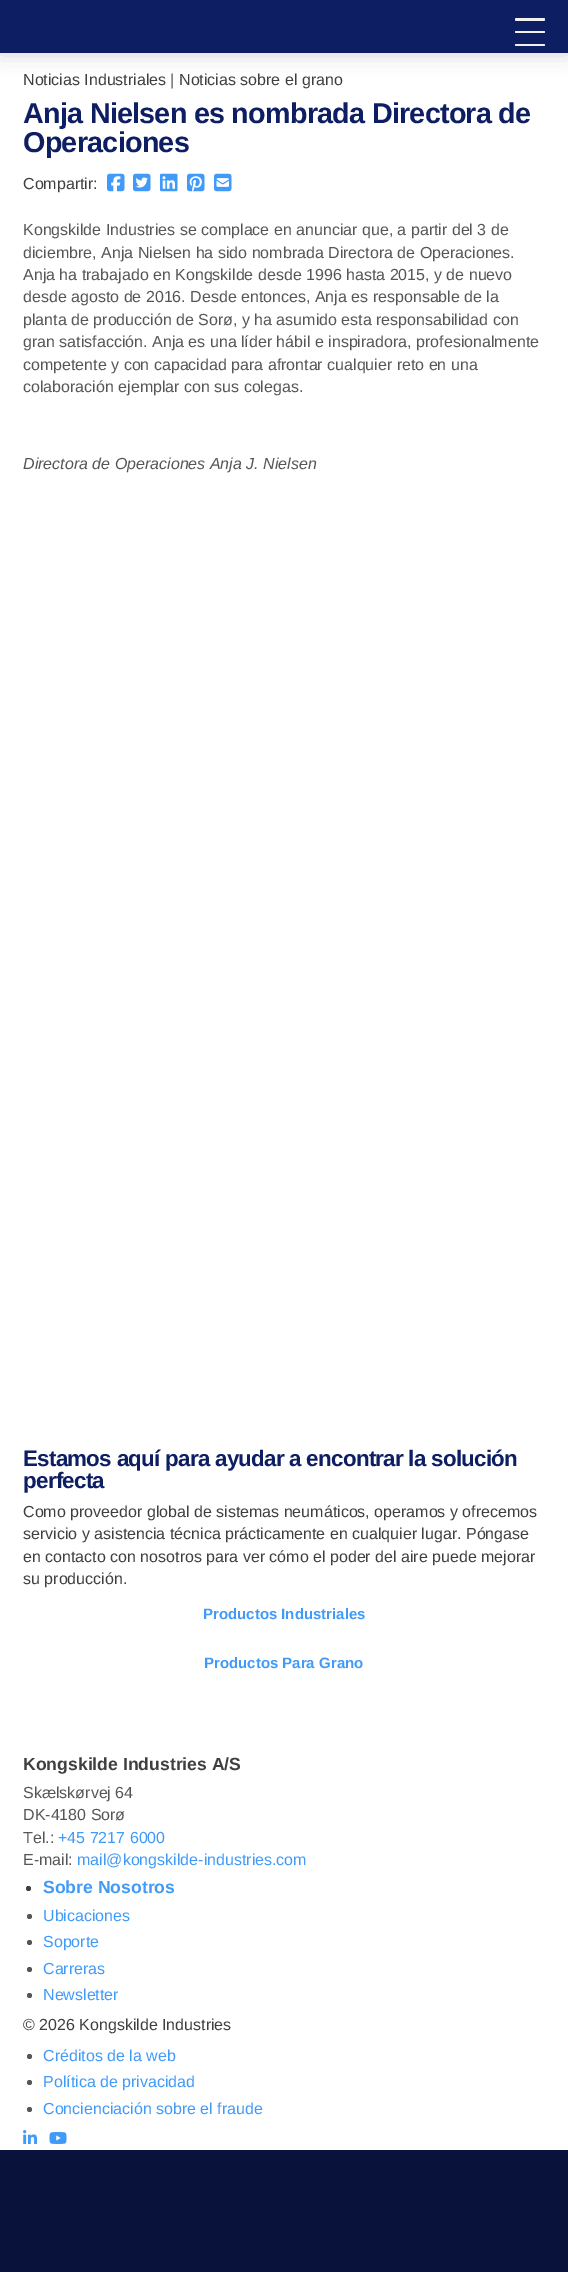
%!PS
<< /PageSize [568 2272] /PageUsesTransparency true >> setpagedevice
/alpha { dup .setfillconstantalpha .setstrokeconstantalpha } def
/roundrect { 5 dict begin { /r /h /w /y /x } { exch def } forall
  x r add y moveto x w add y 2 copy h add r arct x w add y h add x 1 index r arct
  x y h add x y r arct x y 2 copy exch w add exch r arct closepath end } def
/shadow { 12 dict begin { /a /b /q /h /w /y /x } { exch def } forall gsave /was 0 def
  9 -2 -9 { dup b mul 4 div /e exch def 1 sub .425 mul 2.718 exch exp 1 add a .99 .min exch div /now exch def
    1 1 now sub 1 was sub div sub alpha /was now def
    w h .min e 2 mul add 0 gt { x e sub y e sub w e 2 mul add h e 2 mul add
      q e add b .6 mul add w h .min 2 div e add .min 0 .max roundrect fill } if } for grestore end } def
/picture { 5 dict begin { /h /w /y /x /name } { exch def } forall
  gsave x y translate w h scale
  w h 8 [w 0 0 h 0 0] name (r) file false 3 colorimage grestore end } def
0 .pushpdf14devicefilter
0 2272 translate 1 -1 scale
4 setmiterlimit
0.031 0.071 0.231 setrgbcolor
0 0 568 2272 rectfill
1 setgray
0 53 568 2097 rectfill
0 setgray
0 2 568 53 0 10 0.16 shadow
0.055 0.118 0.388 setrgbcolor
0 0 568 53 rectfill
0.945 setgray
515 18 30 3 1.5 roundrect fill
515 31 30 2 1 roundrect fill
515 44 30 2 1 roundrect fill
/LiberationSans-Regular [16 0 0 -16 0 0] selectfont
0.247 setgray
23 85 moveto (Noticias Industriales) show
0.337 setgray
170 85 moveto (|) show
0.247 setgray
179 85 moveto (Noticias sobre el grano) show
/LiberationSans-Bold [28.75 0 0 -28.75 0 0] selectfont
0.055 0.118 0.388 setrgbcolor
23 123 moveto -0.75 0 (Anja Nielsen es nombrada Directora de) ashow
23 152 moveto -0.75 0 (Operaciones) ashow
/LiberationSans-Regular [16 0 0 -16 0 0] selectfont
0.247 setgray
23 189 moveto (Compartir:) show
(img1.rgb) 107 173 18 19 picture
(img2.rgb) 133 173 18 19 picture
(img3.rgb) 160 173 18 19 picture
(img4.rgb) 187 173 18 19 picture
(img5.rgb) 214 173 18 19 picture
0.337 setgray
23 235 moveto (Kongskilde Industries se complace en anunciar que, a partir del 3 de) show
23 258 moveto (diciembre, Anja Nielsen ha sido nombrada Directora de Operaciones.) show
23 280 moveto (Anja ha trabajado en Kongskilde desde 1996 hasta 2015, y de nuevo) show
23 302 moveto (desde agosto de 2016. Desde entonces, Anja es responsable de la) show
23 325 moveto (planta de producción de Sorø, y ha asumido esta responsabilidad con) show
23 347 moveto (gran satisfacción. Anja es una líder hábil e inspiradora, profesionalmente) show
23 370 moveto (competente y con capacidad para afrontar cualquier reto en una) show
23 392 moveto (colaboración ejemplar con sus colegas.) show
/LiberationSans-Italic [16 0 0 -16 0 0] selectfont
23 469 moveto (Directora de Operaciones Anja J. Nielsen) show
/LiberationSans-Bold [22.4 0 0 -22.4 0 0] selectfont
0.055 0.118 0.388 setrgbcolor
23 1466 moveto -0.75 0 (Estamos aquí para ayudar a encontrar la solución) ashow
23 1488 moveto -0.75 0 (perfecta) ashow
/LiberationSans-Regular [16 0 0 -16 0 0] selectfont
0.247 setgray
23 1517 moveto (Como proveedor global de sistemas neumáticos, operamos y ofrecemos) show
23 1539 moveto (servicio y asistencia técnica prácticamente en cualquier lugar. Póngase) show
23 1562 moveto (en contacto con nosotros para ver cómo el poder del aire puede mejorar) show
23 1584 moveto (su producción.) show
/LiberationSans-Bold [15 0 0 -15 0 0] selectfont
0.255 0.604 0.973 setrgbcolor
203 1619 moveto (Productos Industriales) show
204 1668 moveto (Productos Para Grano) show
/LiberationSans-Bold [17.6 0 0 -17.6 0 0] selectfont
0.247 setgray
23 1770 moveto (Kongskilde Industries A/S) show
/LiberationSans-Regular [16 0 0 -16 0 0] selectfont
0.337 setgray
23 1798 moveto (Skælskørvej 64) show
23 1820 moveto (DK-4180 Sorø) show
23 1843 moveto (Tel.:) show
0.255 0.604 0.973 setrgbcolor
58 1843 moveto (+45 7217 6000) show
0.337 setgray
23 1865 moveto (E-mail:) show
0.255 0.604 0.973 setrgbcolor
77 1865 moveto (mail@kongskilde-industries.com) show
0.247 setgray
newpath 28.5 1888.5 2.5 0 360 arc closepath fill
/LiberationSans-Bold [17.6 0 0 -17.6 0 0] selectfont
0.255 0.604 0.973 setrgbcolor
43 1893 moveto (Sobre Nosotros) show
0.337 setgray
newpath 29.5 1916.5 2.5 0 360 arc closepath fill
/LiberationSans-Regular [16 0 0 -16 0 0] selectfont
0.255 0.604 0.973 setrgbcolor
43 1921 moveto (Ubicaciones) show
0.337 setgray
newpath 29.5 1942.5 2.5 0 360 arc closepath fill
0.255 0.604 0.973 setrgbcolor
43 1947 moveto (Soporte) show
0.337 setgray
newpath 29.5 1969.5 2.5 0 360 arc closepath fill
0.255 0.604 0.973 setrgbcolor
43 1974 moveto (Carreras) show
0.337 setgray
newpath 29.5 1995.5 2.5 0 360 arc closepath fill
0.255 0.604 0.973 setrgbcolor
43 2000 moveto (Newsletter) show
0.247 setgray
23 2030 moveto (© 2026 Kongskilde Industries) show
0.337 setgray
newpath 29.5 2056.5 2.5 0 360 arc closepath fill
0.255 0.604 0.973 setrgbcolor
43 2061 moveto (Créditos de la web) show
0.337 setgray
newpath 29.5 2082.5 2.5 0 360 arc closepath fill
0.255 0.604 0.973 setrgbcolor
43 2087 moveto (Política de privacidad) show
0.337 setgray
newpath 29.5 2109.5 2.5 0 360 arc closepath fill
0.255 0.604 0.973 setrgbcolor
43 2114 moveto (Concienciación sobre el fraude) show
(img6.rgb) 23 2130 14 14 picture
(img7.rgb) 49 2132 18 12 picture
.poppdf14devicefilter showpage
